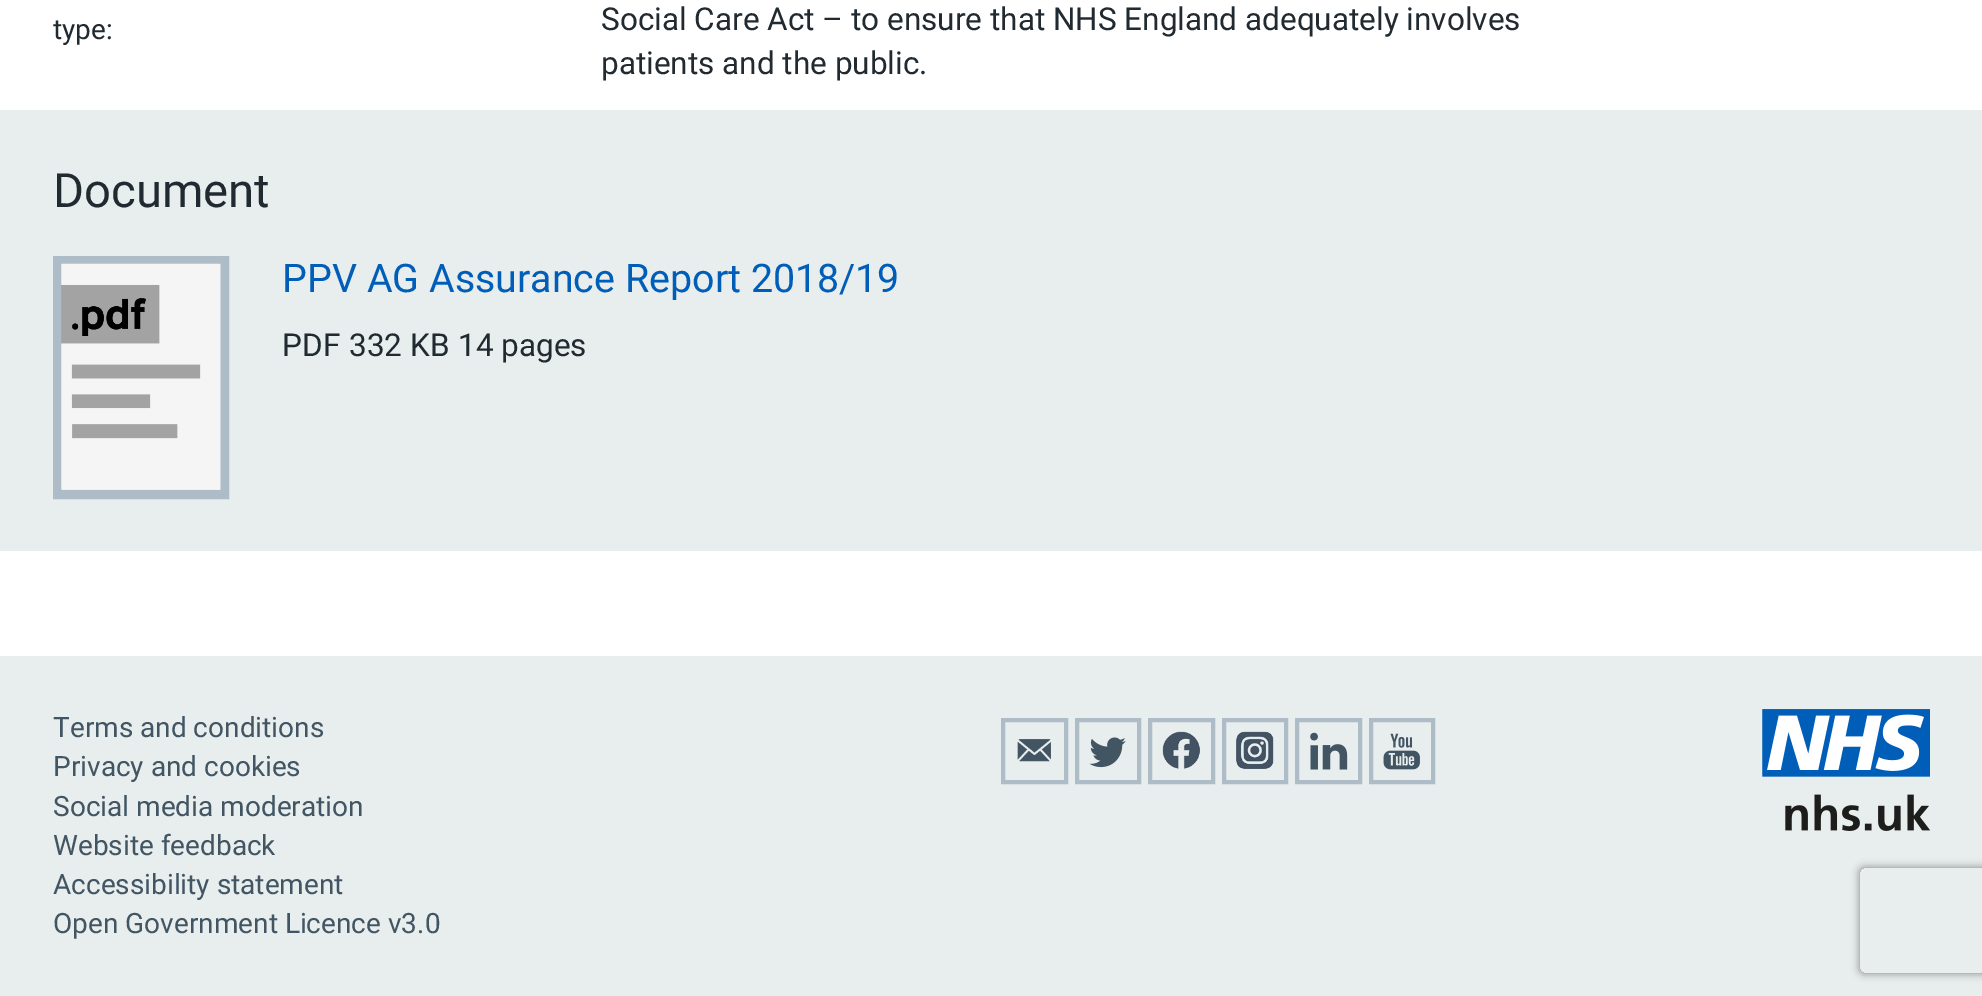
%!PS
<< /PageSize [1982 996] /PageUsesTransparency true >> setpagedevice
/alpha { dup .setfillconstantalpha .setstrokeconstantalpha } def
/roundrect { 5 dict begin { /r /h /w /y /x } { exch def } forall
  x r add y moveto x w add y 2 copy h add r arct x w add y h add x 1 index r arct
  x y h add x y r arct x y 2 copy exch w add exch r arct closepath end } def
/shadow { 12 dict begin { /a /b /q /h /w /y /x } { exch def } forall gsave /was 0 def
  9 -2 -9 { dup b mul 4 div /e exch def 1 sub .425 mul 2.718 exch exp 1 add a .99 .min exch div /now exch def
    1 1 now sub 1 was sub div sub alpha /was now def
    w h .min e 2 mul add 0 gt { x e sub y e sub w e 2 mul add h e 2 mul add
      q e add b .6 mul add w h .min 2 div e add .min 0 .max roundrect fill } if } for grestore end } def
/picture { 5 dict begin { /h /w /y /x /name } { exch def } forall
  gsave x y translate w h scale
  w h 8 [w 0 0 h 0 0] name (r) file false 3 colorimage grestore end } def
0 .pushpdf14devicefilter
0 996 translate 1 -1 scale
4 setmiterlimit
1 setgray
0 0 1982 996 rectfill
/Roboto-Regular [28 0 0 -28 0 0] selectfont
0.125 0.165 0.188 setrgbcolor
53 39 moveto (type:) show
/Roboto-Regular [31.5 0 0 -31.5 0 0] selectfont
601 30 moveto (Social Care Act – to ensure that NHS England adequately involves) show
601 74 moveto (patients and the public.) show
0.91 0.929 0.933 setrgbcolor
0 110 1982 441 rectfill
/Roboto-Regular [47.25 0 0 -47.25 0 0] selectfont
0.125 0.165 0.188 setrgbcolor
53 207 moveto (Document) show
0.678 0.737 0.78 setrgbcolor
9 setlinewidth
57.5 260.5 167 234 rectstroke
(img1.rgb) 61 263 160 227 picture
/Roboto-Regular [39.4 0 0 -39.4 0 0] selectfont
0 0.369 0.722 setrgbcolor
282 292 moveto (PPV AG Assurance Report 2018/19) show
/Roboto-Regular [31.5 0 0 -31.5 0 0] selectfont
0.125 0.165 0.188 setrgbcolor
282 356 moveto (PDF) show
349 356 moveto (332 KB) show
458 356 moveto (14 pages) show
0.91 0.929 0.933 setrgbcolor
0 656 1982 340 rectfill
/Roboto-Regular [28 0 0 -28 0 0] selectfont
0.259 0.333 0.388 setrgbcolor
53 737 moveto (Terms and conditions) show
53 776 moveto (Privacy and cookies) show
53 816 moveto (Social media moderation) show
53 855 moveto (Website feedback) show
53 894 moveto (Accessibility statement) show
53 933 moveto (Open Government Licence v3.0) show
(img2.rgb) 1017 739 34 23 picture
0.678 0.737 0.78 setrgbcolor
4 setlinewidth
1003 720 63 62 rectstroke
(img3.rgb) 1089 737 37 31 picture
1077 720 62 62 rectstroke
(img4.rgb) 1162 731 38 38 picture
1150 720 63 62 rectstroke
(img5.rgb) 1236 731 38 38 picture
1224 720 62 62 rectstroke
(img6.rgb) 1310 732 38 38 picture
1297 720 63 62 rectstroke
(img7.rgb) 1383 733 37 37 picture
1371 720 62 62 rectstroke
(img8.rgb) 1762 709 168 122 picture
gsave
newpath 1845 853 moveto 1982 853 lineto 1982 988 lineto 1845 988 lineto closepath 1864 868 moveto 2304 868 lineto 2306 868 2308 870 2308 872 curveto 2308 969 lineto 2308 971 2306 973 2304 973 curveto 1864 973 lineto 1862 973 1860 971 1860 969 curveto 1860 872 lineto 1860 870 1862 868 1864 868 curveto closepath eoclip newpath
0.502 setgray
1860 868 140 105 4 4.5 1 shadow
grestore
.poppdf14devicefilter showpage
